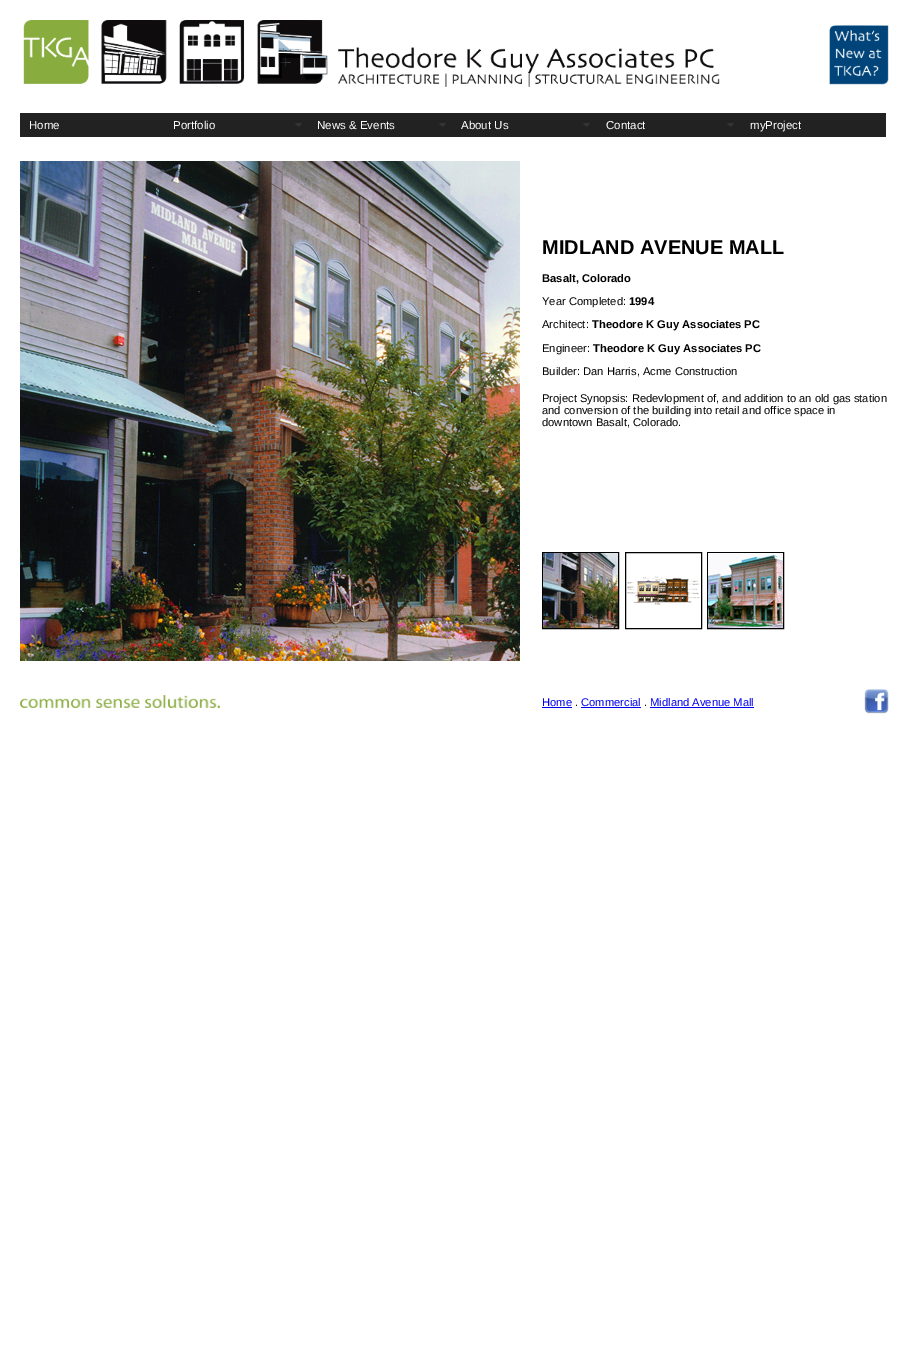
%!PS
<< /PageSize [909 1347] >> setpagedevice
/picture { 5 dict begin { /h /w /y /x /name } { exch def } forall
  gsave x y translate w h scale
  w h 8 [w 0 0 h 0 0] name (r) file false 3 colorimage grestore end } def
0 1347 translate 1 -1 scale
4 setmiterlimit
1 setgray
0 0 909 1347 rectfill
(img1.rgb) 23 20 697 67 picture
(img2.rgb) 829 25 60 60 picture
0.133 setgray
20 113 866 24 rectfill
/LiberationSans-Regular [11.5 0 0 -11.5 0 0] selectfont
1 setgray
29 129 moveto (Home) show
(img3.rgb) 295 123 7 4 picture
173 129 moveto (Portfolio) show
(img3.rgb) 439 123 7 4 picture
317 129 moveto (News & Events) show
(img3.rgb) 583 123 7 4 picture
461 129 moveto (About Us) show
(img3.rgb) 727 123 7 4 picture
606 129 moveto (Contact) show
750 129 moveto (myProject) show
(img4.rgb) 20 161 500 500 picture
/LiberationSans-Bold [20 0 0 -20 0 0] selectfont
0 setgray
542 254 moveto (MIDLAND AVENUE MALL) show
/LiberationSans-Bold [11.2 0 0 -11.2 0 0] selectfont
542 282 moveto (Basalt, Colorado) show
/LiberationSans-Regular [11.2 0 0 -11.2 0 0] selectfont
542 305 moveto (Year Completed:) show
/LiberationSans-Bold [11.2 0 0 -11.2 0 0] selectfont
629 305 moveto (1994) show
/LiberationSans-Regular [11.2 0 0 -11.2 0 0] selectfont
542 328 moveto (Architect:) show
/LiberationSans-Bold [11.2 0 0 -11.2 0 0] selectfont
592 328 moveto (Theodore K Guy Associates PC) show
/LiberationSans-Regular [11.2 0 0 -11.2 0 0] selectfont
542 352 moveto (Engineer:) show
/LiberationSans-Bold [11.2 0 0 -11.2 0 0] selectfont
593 352 moveto (Theodore K Guy Associates PC) show
/LiberationSans-Regular [11.2 0 0 -11.2 0 0] selectfont
542 375 moveto (Builder: Dan Harris, Acme Construction) show
542 402 moveto (Project Synopsis: Redevlopment of, and addition to an old gas station) show
542 414 moveto (and conversion of the building into retail and office space in) show
542 426 moveto (downtown Basalt, Colorado.) show
542.5 552.5 76 76 rectstroke
625.5 552.5 76 76 rectstroke
707.5 552.5 76 76 rectstroke
(img5.rgb) 543 553 75 75 picture
(img6.rgb) 627 576 73 29 picture
(img7.rgb) 708 553 75 75 picture
(img8.rgb) 20 695 200 13 picture
0 0 0.933 setrgbcolor
542 706 moveto (Home) show
542 707 30 1 rectfill
0 setgray
575 706 moveto (.) show
0 0 0.933 setrgbcolor
581 706 moveto (Commercial) show
581 707 60 1 rectfill
0 setgray
644 706 moveto (.) show
0 0 0.933 setrgbcolor
650 706 moveto (Midland Avenue Mall) show
650 707 104 1 rectfill
(img9.rgb) 864 689 25 25 picture
showpage
